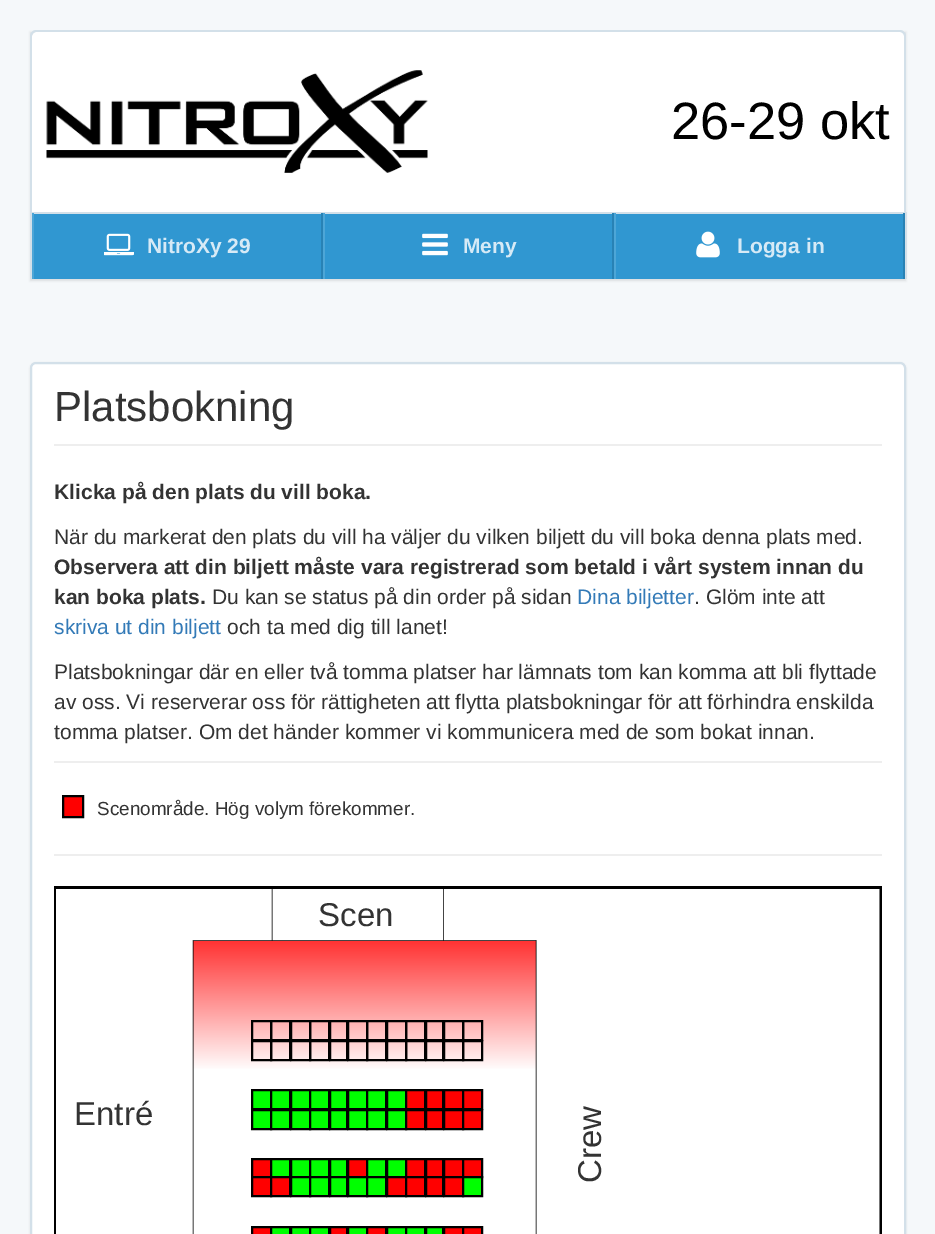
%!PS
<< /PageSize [935 1234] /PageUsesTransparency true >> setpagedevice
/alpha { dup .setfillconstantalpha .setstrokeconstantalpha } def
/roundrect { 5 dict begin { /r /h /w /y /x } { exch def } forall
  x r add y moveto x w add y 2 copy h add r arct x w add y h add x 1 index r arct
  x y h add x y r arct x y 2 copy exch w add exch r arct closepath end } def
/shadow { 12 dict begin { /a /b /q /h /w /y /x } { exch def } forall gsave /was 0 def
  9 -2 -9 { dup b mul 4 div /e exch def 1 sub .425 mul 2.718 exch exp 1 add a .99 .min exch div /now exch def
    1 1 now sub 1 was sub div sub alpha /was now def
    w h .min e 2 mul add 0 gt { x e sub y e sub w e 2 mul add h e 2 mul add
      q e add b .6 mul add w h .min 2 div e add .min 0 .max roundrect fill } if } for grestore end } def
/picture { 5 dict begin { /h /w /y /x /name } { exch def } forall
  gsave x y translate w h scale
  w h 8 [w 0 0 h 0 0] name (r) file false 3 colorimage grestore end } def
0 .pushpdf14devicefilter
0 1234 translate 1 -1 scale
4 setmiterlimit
0.961 0.973 0.98 setrgbcolor
0 0 935 1234 rectfill
0 setgray
30 32 876 249 0 1 0.1 shadow
1 setgray
newpath 37 32 moveto 900 32 lineto 903 32 905 34 905 37 curveto 905 212 lineto 32 212 lineto 32 37 lineto 32 34 34 32 37 32 curveto closepath fill
0.827 0.878 0.914 setrgbcolor
newpath 36 30 moveto 900 30 lineto 903 30 906 33 906 36 curveto 906 212 lineto 30 212 lineto 30 36 lineto 30 33 33 30 36 30 curveto closepath 36 32 moveto 900 32 lineto 902 32 904 34 904 36 curveto 904 212 lineto 32 212 lineto 32 36 lineto 32 34 34 32 36 32 curveto closepath eofill
(img1.rgb) 46 70 382 103 picture
/LiberationSans-Regular [52.5 0 0 -52.5 0 0] selectfont
0 setgray
671 139 moveto (26-29 okt) show
0.188 0.592 0.82 setrgbcolor
34 214 869 65 rectfill
0.827 0.878 0.914 setrgbcolor
30 212 876 2 rectfill
905 212 2 67 rectfill
30 212 2 67 rectfill
0.157 0.51 0.71 setrgbcolor
321 213 2 66 rectfill
0.302 0.651 0.843 setrgbcolor
32 213 2 66 rectfill
(img2.rgb) 104 233 30 23 picture
/LiberationSans-Bold [21 0 0 -21 0 0] selectfont
0.839 0.918 0.965 setrgbcolor
147 253 moveto (NitroXy 29) show
0.157 0.51 0.71 setrgbcolor
612 213 2 66 rectfill
0.302 0.651 0.843 setrgbcolor
323 213 2 66 rectfill
(img3.rgb) 422 233 26 23 picture
0.839 0.918 0.965 setrgbcolor
463 253 moveto (Meny) show
0.157 0.51 0.71 setrgbcolor
903 213 2 66 rectfill
0.302 0.651 0.843 setrgbcolor
614 213 2 66 rectfill
(img4.rgb) 696 231 24 27 picture
0.839 0.918 0.965 setrgbcolor
737 253 moveto (Logga in) show
0 setgray
30 363 876 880 6 1 0.1 shadow
1 setgray
31 363 874 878 5 roundrect gsave fill grestore
0.827 0.878 0.914 setrgbcolor
2 setlinewidth
stroke
0.933 setgray
54 444 828 2 rectfill
/LiberationSans-Regular [42 0 0 -42 0 0] selectfont
0.2 setgray
54 421 moveto (Platsbokning) show
/LiberationSans-Bold [21 0 0 -21 0 0] selectfont
54 499 moveto (Klicka på den plats du vill boka.) show
/LiberationSans-Regular [21 0 0 -21 0 0] selectfont
54 544 moveto (När du markerat den plats du vill ha väljer du vilken biljett du vill boka denna plats med.) show
/LiberationSans-Bold [21 0 0 -21 0 0] selectfont
54 574 moveto (Observera att din biljett måste vara registrerad som betald i vårt system innan du) show
54 604 moveto (kan boka plats.) show
/LiberationSans-Regular [21 0 0 -21 0 0] selectfont
212 604 moveto (Du kan se status på din order på sidan) show
0.2 0.478 0.718 setrgbcolor
577 604 moveto (Dina biljetter) show
0.2 setgray
694 604 moveto (. Glöm inte att) show
0.2 0.478 0.718 setrgbcolor
54 634 moveto (skriva ut din biljett) show
0.2 setgray
227 634 moveto (och ta med dig till lanet!) show
54 679 moveto (Platsbokningar där en eller två tomma platser har lämnats tom kan komma att bli flyttade) show
54 709 moveto (av oss. Vi reserverar oss för rättigheten att flytta platsbokningar för att förhindra enskilda) show
54 739 moveto (tomma platser. Om det händer kommer vi kommunicera med de som bokat innan.) show
0.933 setgray
54 761 828 2 rectfill
1 0 0 setrgbcolor
newpath 63 796 moveto 83 796 lineto 83 817 lineto 63 817 lineto closepath gsave fill grestore
0 setgray
stroke
/LiberationSans-Regular [18.9 0 0 -18.9 0 0] selectfont
0.2 setgray
97 815 moveto (Scenområde. Hög volym förekommer.) show
0.933 setgray
54 854 828 2 rectfill
gsave newpath 193 941 moveto 536 941 lineto 536 1069 lineto 193 1069 lineto closepath clip newpath
<< /ShadingType 2 /ColorSpace /DeviceRGB /Coords [193 941 193 1071] /Extend [true true] /Function << /FunctionType 2 /Domain [0 1] /C0 [1 0.2 0.2] /C1 [1 1 1] /N 1 >> >> shfill grestore
gsave
54 885 828 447 rectclip
0 setgray
2.8 setlinewidth
1 setlinecap
newpath 54.5 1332 moveto 54.5 887.5 lineto 881 887.5 lineto 881 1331.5 lineto 54.5 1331.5 lineto stroke
grestore
/LiberationSans-Regular [33 0 0 -33 0 0] selectfont
0.2 setgray
318 926 moveto (Scen) show
0 setgray
0.4 setlinewidth
1 setlinecap
newpath 536 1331.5 moveto 536 940.5 lineto stroke
newpath 193 940.5 moveto 536 940.5 lineto stroke
newpath 443.5 940.5 moveto 443.5 887.5 lineto stroke
newpath 272 940.5 moveto 272 888 lineto stroke
2 setlinewidth
0 setlinecap
252 1021 19 19 rectstroke
271 1021 19 19 rectstroke
291 1021 19 19 rectstroke
310 1021 19 19 rectstroke
330 1021 17 19 rectstroke
348 1021 19 19 rectstroke
367 1021 19 19 rectstroke
387 1021 19 19 rectstroke
406 1021 19 19 rectstroke
426 1021 17 19 rectstroke
444 1021 19 19 rectstroke
463 1021 19 19 rectstroke
252 1041 19 19 rectstroke
271 1041 19 19 rectstroke
291 1041 19 19 rectstroke
310 1041 19 19 rectstroke
330 1041 17 19 rectstroke
348 1041 19 19 rectstroke
367 1041 19 19 rectstroke
387 1041 19 19 rectstroke
406 1041 19 19 rectstroke
426 1041 17 19 rectstroke
444 1041 19 19 rectstroke
463 1041 19 19 rectstroke
0.2 setgray
74 1125 moveto (Entré) show
0 setgray
0.4 setlinewidth
1 setlinecap
newpath 193 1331 moveto 193 941 lineto stroke
0 1 0 setrgbcolor
newpath 252 1090 moveto 271 1090 lineto 271 1109 lineto 252 1109 lineto closepath gsave fill grestore
0 setgray
2 setlinewidth
0 setlinecap
stroke
0 1 0 setrgbcolor
newpath 271 1090 moveto 290 1090 lineto 290 1109 lineto 271 1109 lineto closepath gsave fill grestore
0 setgray
stroke
0 1 0 setrgbcolor
newpath 291 1090 moveto 310 1090 lineto 310 1109 lineto 291 1109 lineto closepath gsave fill grestore
0 setgray
stroke
0 1 0 setrgbcolor
newpath 310 1090 moveto 329 1090 lineto 329 1109 lineto 310 1109 lineto closepath gsave fill grestore
0 setgray
stroke
0 1 0 setrgbcolor
newpath 330 1090 moveto 347 1090 lineto 347 1109 lineto 330 1109 lineto closepath gsave fill grestore
0 setgray
stroke
0 1 0 setrgbcolor
newpath 348 1090 moveto 367 1090 lineto 367 1109 lineto 348 1109 lineto closepath gsave fill grestore
0 setgray
stroke
0 1 0 setrgbcolor
newpath 367 1090 moveto 386 1090 lineto 386 1109 lineto 367 1109 lineto closepath gsave fill grestore
0 setgray
stroke
0 1 0 setrgbcolor
newpath 387 1090 moveto 406 1090 lineto 406 1109 lineto 387 1109 lineto closepath gsave fill grestore
0 setgray
stroke
1 0 0 setrgbcolor
newpath 406 1090 moveto 425 1090 lineto 425 1109 lineto 406 1109 lineto closepath gsave fill grestore
0 setgray
stroke
1 0 0 setrgbcolor
newpath 426 1090 moveto 443 1090 lineto 443 1109 lineto 426 1109 lineto closepath gsave fill grestore
0 setgray
stroke
1 0 0 setrgbcolor
newpath 444 1090 moveto 463 1090 lineto 463 1109 lineto 444 1109 lineto closepath gsave fill grestore
0 setgray
stroke
1 0 0 setrgbcolor
newpath 463 1090 moveto 482 1090 lineto 482 1109 lineto 463 1109 lineto closepath gsave fill grestore
0 setgray
stroke
0 1 0 setrgbcolor
newpath 252 1110 moveto 271 1110 lineto 271 1129 lineto 252 1129 lineto closepath gsave fill grestore
0 setgray
stroke
0 1 0 setrgbcolor
newpath 271 1110 moveto 290 1110 lineto 290 1129 lineto 271 1129 lineto closepath gsave fill grestore
0 setgray
stroke
0 1 0 setrgbcolor
newpath 291 1110 moveto 310 1110 lineto 310 1129 lineto 291 1129 lineto closepath gsave fill grestore
0 setgray
stroke
0 1 0 setrgbcolor
newpath 310 1110 moveto 329 1110 lineto 329 1129 lineto 310 1129 lineto closepath gsave fill grestore
0 setgray
stroke
0 1 0 setrgbcolor
newpath 330 1110 moveto 347 1110 lineto 347 1129 lineto 330 1129 lineto closepath gsave fill grestore
0 setgray
stroke
0 1 0 setrgbcolor
newpath 348 1110 moveto 367 1110 lineto 367 1129 lineto 348 1129 lineto closepath gsave fill grestore
0 setgray
stroke
0 1 0 setrgbcolor
newpath 367 1110 moveto 386 1110 lineto 386 1129 lineto 367 1129 lineto closepath gsave fill grestore
0 setgray
stroke
0 1 0 setrgbcolor
newpath 387 1110 moveto 406 1110 lineto 406 1129 lineto 387 1129 lineto closepath gsave fill grestore
0 setgray
stroke
1 0 0 setrgbcolor
newpath 406 1110 moveto 425 1110 lineto 425 1129 lineto 406 1129 lineto closepath gsave fill grestore
0 setgray
stroke
1 0 0 setrgbcolor
newpath 426 1110 moveto 443 1110 lineto 443 1129 lineto 426 1129 lineto closepath gsave fill grestore
0 setgray
stroke
1 0 0 setrgbcolor
newpath 444 1110 moveto 463 1110 lineto 463 1129 lineto 444 1129 lineto closepath gsave fill grestore
0 setgray
stroke
1 0 0 setrgbcolor
newpath 463 1110 moveto 482 1110 lineto 482 1129 lineto 463 1129 lineto closepath gsave fill grestore
0 setgray
stroke
0.2 setgray
gsave 601 1183 translate -90 rotate 0 0 moveto (Crew) show grestore
1 0 0 setrgbcolor
newpath 252 1159 moveto 271 1159 lineto 271 1177 lineto 252 1177 lineto closepath gsave fill grestore
0 setgray
stroke
0 1 0 setrgbcolor
newpath 271 1159 moveto 290 1159 lineto 290 1177 lineto 271 1177 lineto closepath gsave fill grestore
0 setgray
stroke
0 1 0 setrgbcolor
newpath 291 1159 moveto 310 1159 lineto 310 1177 lineto 291 1177 lineto closepath gsave fill grestore
0 setgray
stroke
0 1 0 setrgbcolor
newpath 310 1159 moveto 329 1159 lineto 329 1177 lineto 310 1177 lineto closepath gsave fill grestore
0 setgray
stroke
0 1 0 setrgbcolor
newpath 330 1159 moveto 347 1159 lineto 347 1177 lineto 330 1177 lineto closepath gsave fill grestore
0 setgray
stroke
1 0 0 setrgbcolor
newpath 348 1159 moveto 367 1159 lineto 367 1177 lineto 348 1177 lineto closepath gsave fill grestore
0 setgray
stroke
0 1 0 setrgbcolor
newpath 367 1159 moveto 386 1159 lineto 386 1177 lineto 367 1177 lineto closepath gsave fill grestore
0 setgray
stroke
0 1 0 setrgbcolor
newpath 387 1159 moveto 406 1159 lineto 406 1177 lineto 387 1177 lineto closepath gsave fill grestore
0 setgray
stroke
1 0 0 setrgbcolor
newpath 406 1159 moveto 425 1159 lineto 425 1177 lineto 406 1177 lineto closepath gsave fill grestore
0 setgray
stroke
1 0 0 setrgbcolor
newpath 426 1159 moveto 443 1159 lineto 443 1177 lineto 426 1177 lineto closepath gsave fill grestore
0 setgray
stroke
1 0 0 setrgbcolor
newpath 444 1159 moveto 463 1159 lineto 463 1177 lineto 444 1177 lineto closepath gsave fill grestore
0 setgray
stroke
1 0 0 setrgbcolor
newpath 463 1159 moveto 482 1159 lineto 482 1177 lineto 463 1177 lineto closepath gsave fill grestore
0 setgray
stroke
1 0 0 setrgbcolor
newpath 252 1177 moveto 271 1177 lineto 271 1196 lineto 252 1196 lineto closepath gsave fill grestore
0 setgray
stroke
1 0 0 setrgbcolor
newpath 271 1177 moveto 290 1177 lineto 290 1196 lineto 271 1196 lineto closepath gsave fill grestore
0 setgray
stroke
0 1 0 setrgbcolor
newpath 291 1177 moveto 310 1177 lineto 310 1196 lineto 291 1196 lineto closepath gsave fill grestore
0 setgray
stroke
0 1 0 setrgbcolor
newpath 310 1177 moveto 329 1177 lineto 329 1196 lineto 310 1196 lineto closepath gsave fill grestore
0 setgray
stroke
0 1 0 setrgbcolor
newpath 330 1177 moveto 347 1177 lineto 347 1196 lineto 330 1196 lineto closepath gsave fill grestore
0 setgray
stroke
0 1 0 setrgbcolor
newpath 348 1177 moveto 367 1177 lineto 367 1196 lineto 348 1196 lineto closepath gsave fill grestore
0 setgray
stroke
0 1 0 setrgbcolor
newpath 367 1177 moveto 386 1177 lineto 386 1196 lineto 367 1196 lineto closepath gsave fill grestore
0 setgray
stroke
1 0 0 setrgbcolor
newpath 387 1177 moveto 406 1177 lineto 406 1196 lineto 387 1196 lineto closepath gsave fill grestore
0 setgray
stroke
1 0 0 setrgbcolor
newpath 406 1177 moveto 425 1177 lineto 425 1196 lineto 406 1196 lineto closepath gsave fill grestore
0 setgray
stroke
1 0 0 setrgbcolor
newpath 426 1177 moveto 443 1177 lineto 443 1196 lineto 426 1196 lineto closepath gsave fill grestore
0 setgray
stroke
1 0 0 setrgbcolor
newpath 444 1177 moveto 463 1177 lineto 463 1196 lineto 444 1196 lineto closepath gsave fill grestore
0 setgray
stroke
0 1 0 setrgbcolor
newpath 463 1177 moveto 482 1177 lineto 482 1196 lineto 463 1196 lineto closepath gsave fill grestore
0 setgray
stroke
1 0 0 setrgbcolor
newpath 252 1227 moveto 271 1227 lineto 271 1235 lineto 252 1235 lineto closepath gsave fill grestore
0 setgray
stroke
0 1 0 setrgbcolor
newpath 271 1227 moveto 290 1227 lineto 290 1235 lineto 271 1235 lineto closepath gsave fill grestore
0 setgray
stroke
0 1 0 setrgbcolor
newpath 291 1227 moveto 310 1227 lineto 310 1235 lineto 291 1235 lineto closepath gsave fill grestore
0 setgray
stroke
0 1 0 setrgbcolor
newpath 310 1227 moveto 329 1227 lineto 329 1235 lineto 310 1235 lineto closepath gsave fill grestore
0 setgray
stroke
1 0 0 setrgbcolor
newpath 330 1227 moveto 347 1227 lineto 347 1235 lineto 330 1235 lineto closepath gsave fill grestore
0 setgray
stroke
0 1 0 setrgbcolor
newpath 348 1227 moveto 367 1227 lineto 367 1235 lineto 348 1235 lineto closepath gsave fill grestore
0 setgray
stroke
1 0 0 setrgbcolor
newpath 367 1227 moveto 386 1227 lineto 386 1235 lineto 367 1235 lineto closepath gsave fill grestore
0 setgray
stroke
0 1 0 setrgbcolor
newpath 387 1227 moveto 406 1227 lineto 406 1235 lineto 387 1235 lineto closepath gsave fill grestore
0 setgray
stroke
0 1 0 setrgbcolor
newpath 406 1227 moveto 425 1227 lineto 425 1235 lineto 406 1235 lineto closepath gsave fill grestore
0 setgray
stroke
0 1 0 setrgbcolor
newpath 426 1227 moveto 443 1227 lineto 443 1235 lineto 426 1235 lineto closepath gsave fill grestore
0 setgray
stroke
1 0 0 setrgbcolor
newpath 444 1227 moveto 463 1227 lineto 463 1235 lineto 444 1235 lineto closepath gsave fill grestore
0 setgray
stroke
1 0 0 setrgbcolor
newpath 463 1227 moveto 482 1227 lineto 482 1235 lineto 463 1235 lineto closepath gsave fill grestore
0 setgray
stroke
.poppdf14devicefilter showpage
